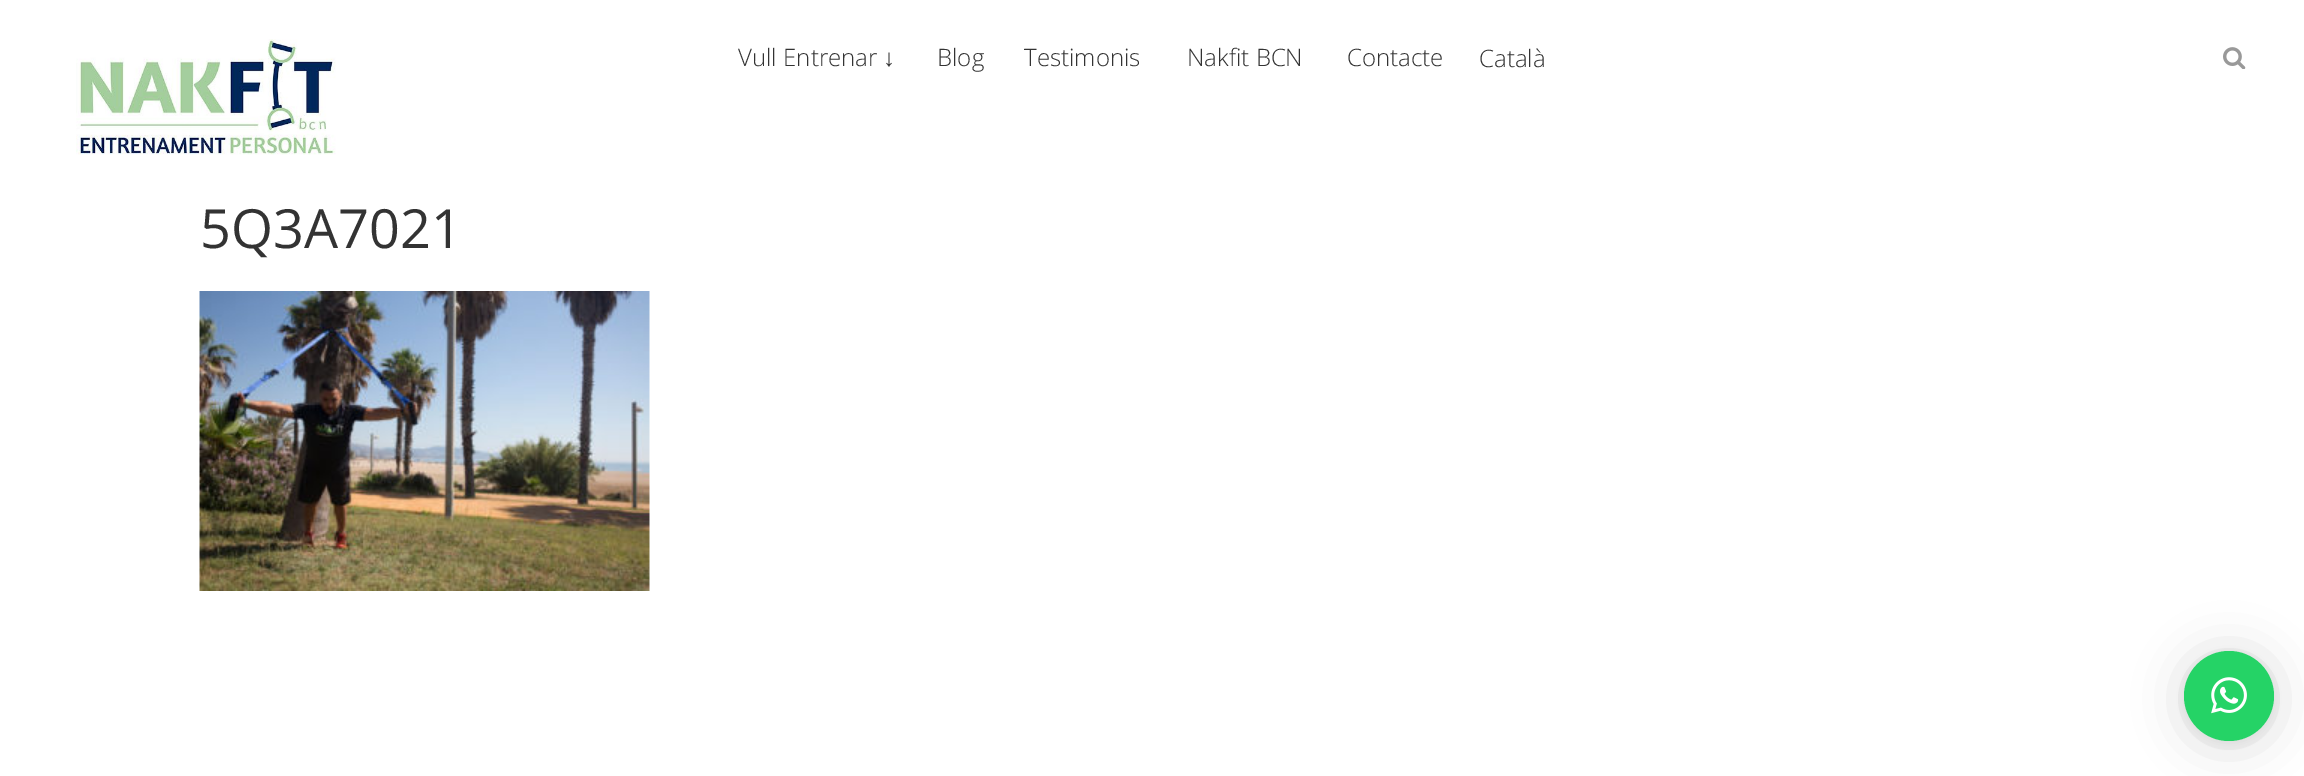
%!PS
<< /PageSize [2304 776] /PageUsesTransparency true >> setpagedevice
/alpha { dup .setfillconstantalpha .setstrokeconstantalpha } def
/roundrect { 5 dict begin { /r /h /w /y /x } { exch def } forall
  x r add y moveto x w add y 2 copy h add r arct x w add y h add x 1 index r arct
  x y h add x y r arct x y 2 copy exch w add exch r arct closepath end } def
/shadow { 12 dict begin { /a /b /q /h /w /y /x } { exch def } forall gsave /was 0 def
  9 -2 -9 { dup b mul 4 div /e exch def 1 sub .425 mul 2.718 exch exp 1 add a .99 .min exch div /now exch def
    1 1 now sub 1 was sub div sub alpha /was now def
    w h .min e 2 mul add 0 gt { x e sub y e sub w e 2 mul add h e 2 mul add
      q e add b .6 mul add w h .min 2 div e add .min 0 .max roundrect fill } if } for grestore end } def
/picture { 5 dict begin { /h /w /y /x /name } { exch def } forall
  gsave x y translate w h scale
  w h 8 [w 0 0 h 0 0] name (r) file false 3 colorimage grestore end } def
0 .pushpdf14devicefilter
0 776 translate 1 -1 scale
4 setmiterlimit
1 setgray
0 0 2304 776 rectfill
(img1.rgb) 76 39 260 116 picture
/OpenSans-Light [24 0 0 -24 0 0] selectfont
0.2 setgray
738 66 moveto (Vull Entrenar) show
/LiberationSans-Regular [24 0 0 -24 0 0] selectfont
883 66 moveto (↓) show
/OpenSans-Light [24 0 0 -24 0 0] selectfont
937 66 moveto (Blog) show
1024 66 moveto (Testimonis) show
1187 66 moveto (Nakfit BCN) show
1347 66 moveto (Contacte) show
1479 67 moveto (Català) show
(img2.rgb) 2223 47 23 22 picture
/OpenSans-Regular [54 0 0 -54 0 0] selectfont
200 248 moveto (5Q3A7021) show
(img3.rgb) 199 291 451 300 picture
0 setgray
2184 654 90 90 45 24 0.16 shadow
2184 653 90 90 45 4.5 0.06 shadow
0.145 0.827 0.4 setrgbcolor
newpath 2229 696 45 0 360 arc closepath fill
(img4.rgb) 2211 677 36 37 picture
.poppdf14devicefilter showpage
